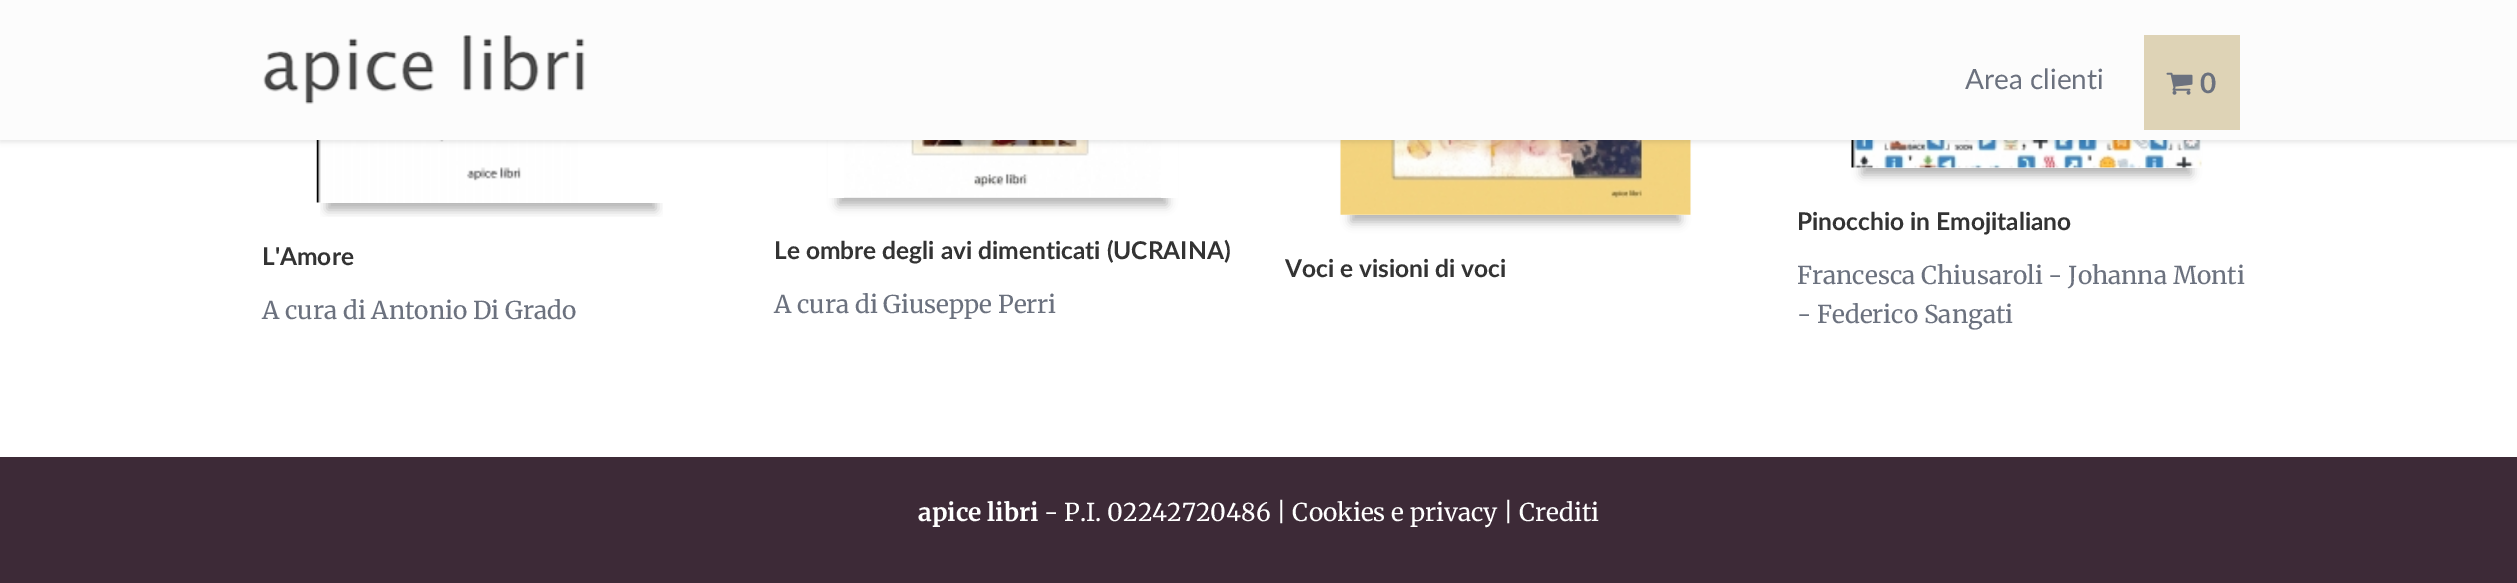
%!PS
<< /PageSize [2517 583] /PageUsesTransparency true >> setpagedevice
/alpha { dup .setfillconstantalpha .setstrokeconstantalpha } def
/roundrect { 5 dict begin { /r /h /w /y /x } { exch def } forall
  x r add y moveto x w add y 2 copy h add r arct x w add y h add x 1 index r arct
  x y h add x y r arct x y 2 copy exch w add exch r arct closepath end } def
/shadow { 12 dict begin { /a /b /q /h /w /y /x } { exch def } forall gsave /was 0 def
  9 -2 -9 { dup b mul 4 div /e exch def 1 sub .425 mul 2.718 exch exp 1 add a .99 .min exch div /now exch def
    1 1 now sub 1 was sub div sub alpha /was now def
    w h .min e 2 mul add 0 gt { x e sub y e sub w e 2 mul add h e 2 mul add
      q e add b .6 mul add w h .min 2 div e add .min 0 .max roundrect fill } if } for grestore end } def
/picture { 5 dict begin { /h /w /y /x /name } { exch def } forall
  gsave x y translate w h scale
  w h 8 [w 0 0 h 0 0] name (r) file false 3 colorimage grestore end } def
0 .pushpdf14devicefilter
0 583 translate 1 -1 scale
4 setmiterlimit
1 setgray
0 0 2517 583 rectfill
gsave
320 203 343 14 rectclip
0 setgray
327 -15 329 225 0 5 0.3 shadow
grestore
(img3.rgb) 316 140 264 63 picture
gsave
newpath 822 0 moveto 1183 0 lineto 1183 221 lineto 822 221 lineto closepath 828 -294 moveto 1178 -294 lineto 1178 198 lineto 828 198 lineto closepath eoclip newpath
0 setgray
838 -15 329 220 0 5 0.3 shadow
grestore
(img4.rgb) 844 140 317 58 picture
0 setgray
1351 -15 329 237 0 5 0.3 shadow
(img5.rgb) 1340 140 351 75 picture
1862 -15 329 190 0 5 0.3 shadow
(img6.rgb) 1851 140 351 28 picture
0 2 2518 140 0 2.5 0.1 shadow
0.988 setgray
0 0 2517 140 rectfill
(img1.rgb) 263 35 322 70 picture
/Lato-Regular [28 0 0 -28 0 0] selectfont
0.42 0.443 0.494 setrgbcolor
1965 89 moveto (Area clienti) show
0.871 0.827 0.714 setrgbcolor
2144 35 96 95 rectfill
(img2.rgb) 2166 72 27 23 picture
/Lato-Bold [28 0 0 -28 0 0] selectfont
0.42 0.443 0.494 setrgbcolor
2200 93 moveto (0) show
/Lato-Bold [24.5 0 0 -24.5 0 0] selectfont
0.2 setgray
262 265 moveto (L'Amore) show
/Merriweather-Regular [24.5 0 0 -24.5 0 0] selectfont
0.42 0.443 0.494 setrgbcolor
262 319 moveto (A cura di Antonio Di Grado) show
/Lato-Bold [24.5 0 0 -24.5 0 0] selectfont
0.2 setgray
774 259 moveto (Le ombre degli avi dimenticati \(UCRAINA\)) show
/Merriweather-Regular [24.5 0 0 -24.5 0 0] selectfont
0.42 0.443 0.494 setrgbcolor
774 313 moveto (A cura di Giuseppe Perri) show
/Lato-Bold [24.5 0 0 -24.5 0 0] selectfont
0.2 setgray
1285 277 moveto (Voci e visioni di voci) show
1797 230 moveto (Pinocchio in Emojitaliano) show
/Merriweather-Regular [24.5 0 0 -24.5 0 0] selectfont
0.42 0.443 0.494 setrgbcolor
1797 284 moveto (Francesca Chiusaroli - Johanna Monti) show
1797 323 moveto (- Federico Sangati) show
0.239 0.165 0.216 setrgbcolor
0 457 2517 126 rectfill
/Merriweather-Bold [24.5 0 0 -24.5 0 0] selectfont
1 setgray
918 521 moveto (apice libri) show
/Merriweather-Regular [24.5 0 0 -24.5 0 0] selectfont
1044 521 moveto (- P.I. 02242720486 | Cookies e privacy | Crediti) show
.poppdf14devicefilter showpage
